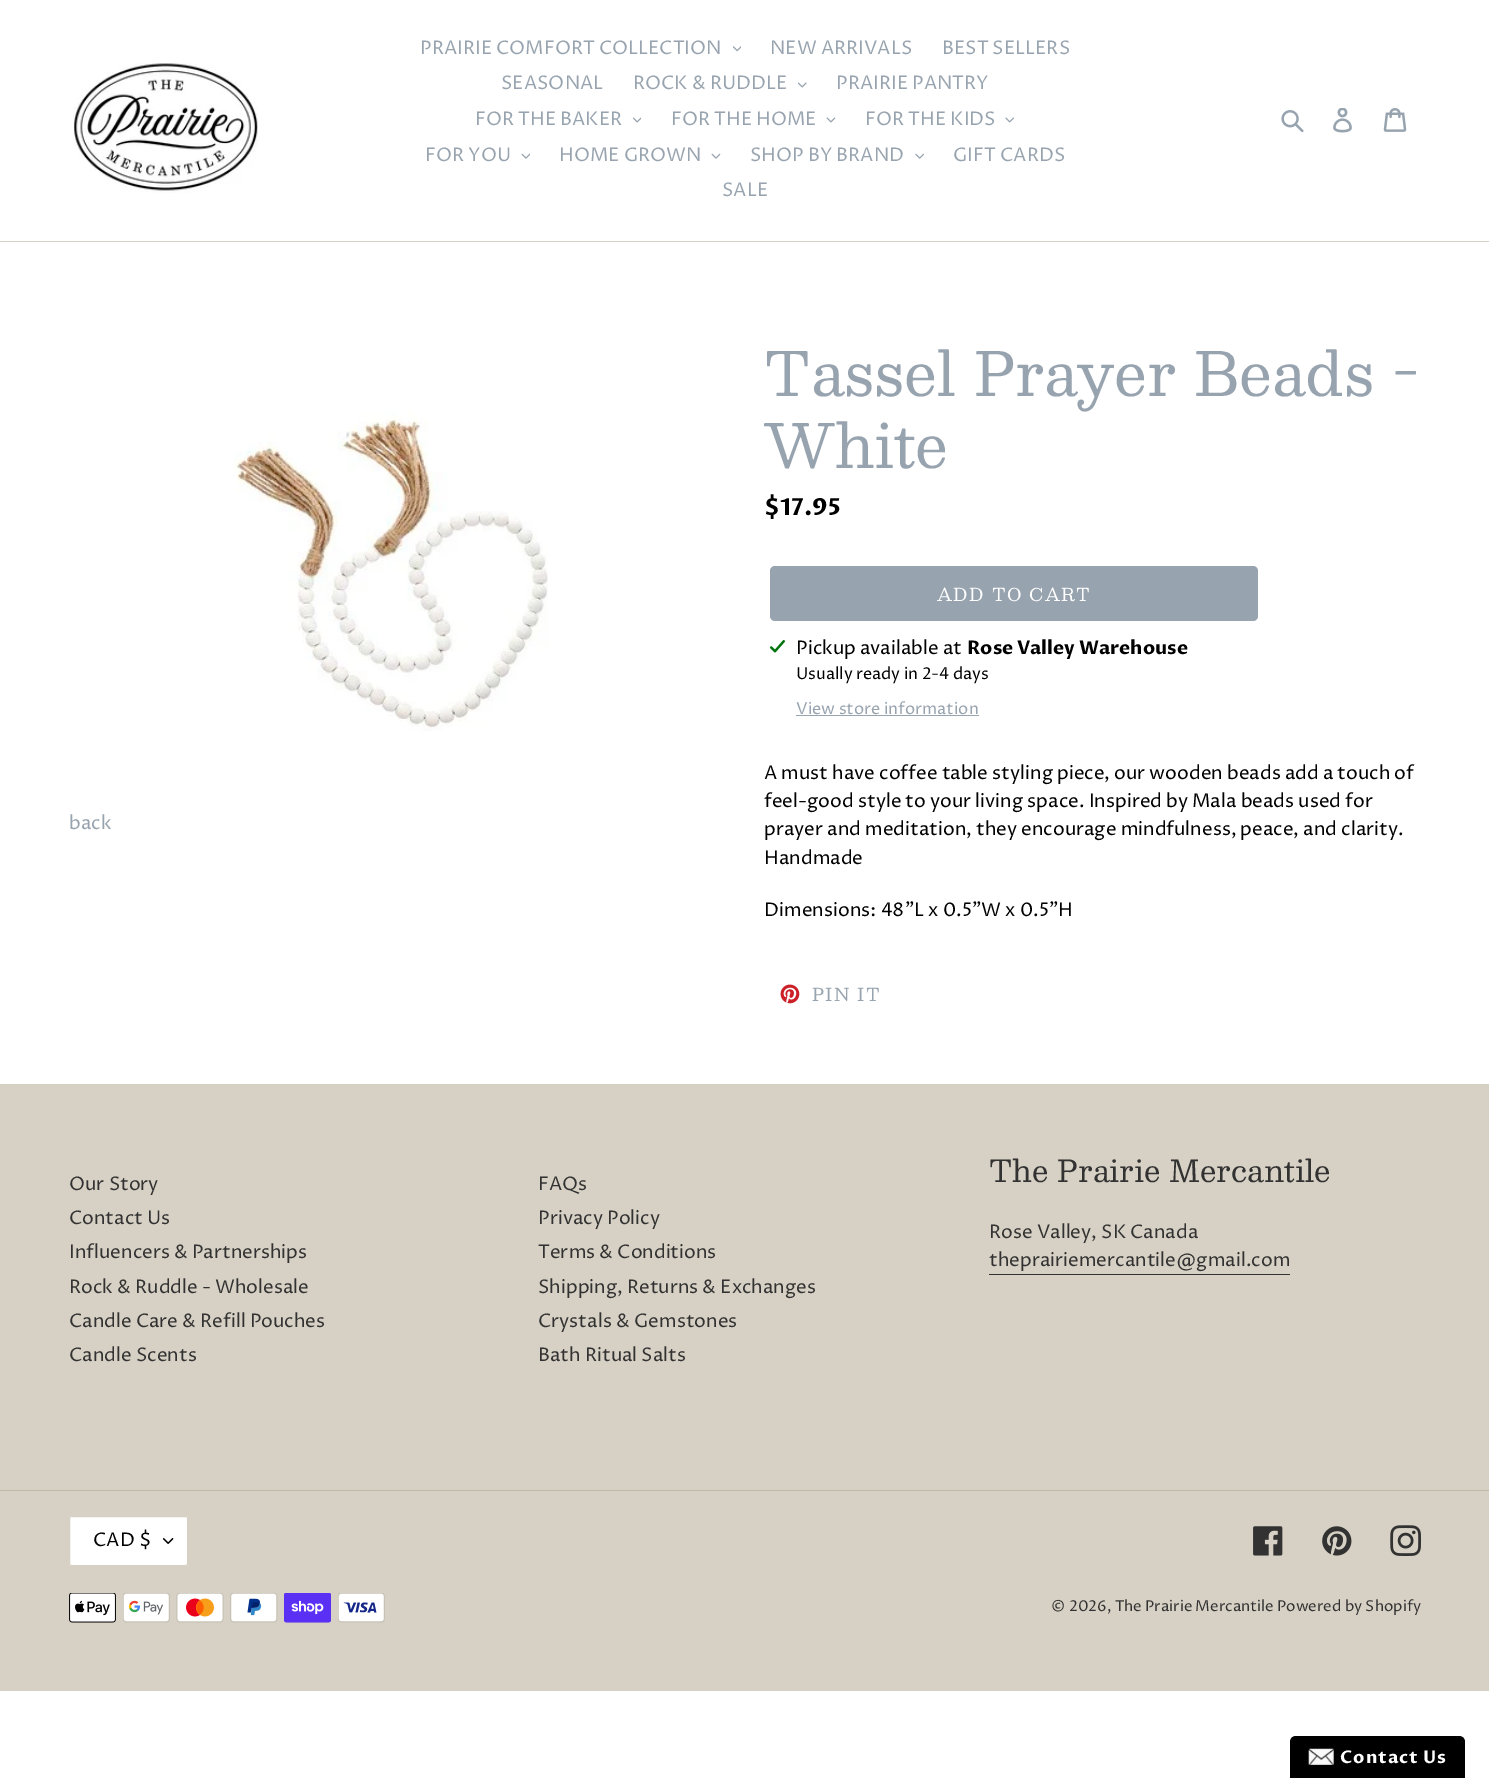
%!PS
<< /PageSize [1489 1778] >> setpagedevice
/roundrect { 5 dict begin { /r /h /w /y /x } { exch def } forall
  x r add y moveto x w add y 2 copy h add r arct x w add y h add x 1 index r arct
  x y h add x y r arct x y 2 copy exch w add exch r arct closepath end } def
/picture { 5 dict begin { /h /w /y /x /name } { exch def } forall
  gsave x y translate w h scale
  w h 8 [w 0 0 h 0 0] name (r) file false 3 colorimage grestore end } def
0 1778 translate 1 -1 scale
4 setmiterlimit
1 setgray
0 0 1489 1778 rectfill
0.839 0.82 0.769 setrgbcolor
0 241 1489 1 rectfill
(img1.rgb) 73 63 185 130 picture
/ProzaLibre-Regular [18.75 0 0 -18.75 0 0] selectfont
0.592 0.639 0.682 setrgbcolor
420 54 moveto (PRAIRIE COMFORT COLLECTION) show
(img2.rgb) 733 46 8 6 picture
770 54 moveto (NEW ARRIVALS) show
942 54 moveto (BEST SELLERS) show
501 89 moveto (SEASONAL) show
633 89 moveto (ROCK & RUDDLE) show
(img3.rgb) 798 82 9 6 picture
836 89 moveto (PRAIRIE PANTRY) show
475 125 moveto (FOR THE BAKER) show
(img4.rgb) 633 117 8 6 picture
671 125 moveto (FOR THE HOME) show
(img5.rgb) 826 117 10 6 picture
865 125 moveto (FOR THE KIDS) show
(img6.rgb) 1005 117 9 6 picture
425 161 moveto (FOR YOU) show
(img7.rgb) 521 153 9 6 picture
559 161 moveto (HOME GROWN) show
(img8.rgb) 711 153 10 6 picture
750 161 moveto (SHOP BY BRAND) show
(img9.rgb) 915 153 9 6 picture
953 161 moveto (GIFT CARDS) show
722 196 moveto (SALE) show
(img10.rgb) 1281 110 23 23 picture
(img11.rgb) 1333 108 19 25 picture
(img12.rgb) 1383 108 24 24 picture
(img13.rgb) 233 411 315 320 picture
69 829 moveto (back) show
/Besley-Regular [60 0 0 -60 0 0] selectfont
764 396 moveto (Tassel Prayer Beads -) show
764 468 moveto (White) show
/ProzaLibre-Bold [23.5 0 0 -23.5 0 0] selectfont
0 setgray
764 515 moveto ($17.95) show
0.592 0.639 0.682 setrgbcolor
770 566 488 55 5 roundrect fill
/Besley-Regular [17.5 0 0 -17.5 0 0] selectfont
1 setgray
937 601 moveto 1.4 0 (ADD TO CART) ashow
(img14.rgb) 770 640 15 13 picture
/ProzaLibre-Regular [18.75 0 0 -18.75 0 0] selectfont
0 setgray
796 654 moveto (Pickup available at) show
/ProzaLibre-Bold [18.75 0 0 -18.75 0 0] selectfont
967 654 moveto (Rose Valley Warehouse) show
/ProzaLibre-Regular [16.25 0 0 -16.25 0 0] selectfont
796 679 moveto (Usually ready in 2-4 days) show
0.592 0.639 0.682 setrgbcolor
796 714 moveto (View store information) show
796 715 183 1 rectfill
/ProzaLibre-Regular [18.75 0 0 -18.75 0 0] selectfont
0 setgray
764 779 moveto (A must have coffee table styling piece, our wooden beads add a touch of) show
764 807 moveto (feel-good style to your living space. Inspired by Mala beads used for) show
764 835 moveto (prayer and meditation, they encourage mindfulness, peace, and clarity.) show
764 864 moveto (Handmade) show
764 916 moveto (Dimensions: 48"L x 0.5"W x 0.5"H) show
(img15.rgb) 780 984 20 20 picture
/Besley-Regular [17.5 0 0 -17.5 0 0] selectfont
0.592 0.639 0.682 setrgbcolor
812 1001 moveto 1.4 0 (PIN IT) ashow
0.839 0.82 0.769 setrgbcolor
0 1084 1489 607 rectfill
/ProzaLibre-Regular [18.75 0 0 -18.75 0 0] selectfont
0.2 0.196 0.196 setrgbcolor
69 1190 moveto (Our Story) show
69 1224 moveto (Contact Us) show
69 1258 moveto (Influencers & Partnerships) show
69 1293 moveto (Rock & Ruddle - Wholesale) show
69 1327 moveto (Candle Care & Refill Pouches) show
69 1361 moveto (Candle Scents) show
538 1190 moveto (FAQs) show
538 1224 moveto (Privacy Policy) show
538 1258 moveto (Terms & Conditions) show
538 1293 moveto (Shipping, Returns & Exchanges) show
538 1327 moveto (Crystals & Gemstones) show
538 1361 moveto (Bath Ritual Salts) show
/Besley-Regular [30 0 0 -30 0 0] selectfont
989 1182 moveto (The Prairie Mercantile) show
/ProzaLibre-Regular [18.75 0 0 -18.75 0 0] selectfont
989 1238 moveto (Rose Valley, SK Canada) show
989 1266 moveto (theprairiemercantile@gmail.com) show
989 1274 301 1 rectfill
0.757 0.729 0.651 setrgbcolor
0 1490 1489 1 rectfill
1 setgray
69 1516 119 50 2.5 roundrect fill
(img16.rgb) 163 1538 11 6 picture
0.839 0.82 0.769 setrgbcolor
69.5 1516.5 118 49 2 roundrect stroke
0 setgray
93 1546 moveto (CAD $) show
(img17.rgb) 1253 1526 30 30 picture
(img18.rgb) 1322 1526 30 30 picture
(img19.rgb) 1390 1525 31 31 picture
(img20.rgb) 69 1593 47 30 picture
(img21.rgb) 123 1593 47 30 picture
(img22.rgb) 176 1593 48 30 picture
(img23.rgb) 230 1593 48 30 picture
(img24.rgb) 284 1593 47 30 picture
(img25.rgb) 338 1593 47 30 picture
/ProzaLibre-Regular [15 0 0 -15 0 0] selectfont
0.2 0.196 0.196 setrgbcolor
1051 1611 moveto (© 2026, The Prairie Mercantile Powered by Shopify) show
0 setgray
newpath 1296 1736 moveto 1459 1736 lineto 1462.5 1736 1465 1738.5 1465 1742 curveto 1465 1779 lineto 1290 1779 lineto 1290 1742 lineto 1290 1738.5 1292.5 1736 1296 1736 curveto closepath fill
(img26.rgb) 1308 1748 26 17 picture
/ProzaLibre-Bold [17.5 0 0 -17.5 0 0] selectfont
1 setgray
1340 1763 moveto 0.9 0 (Contact Us) ashow
showpage
